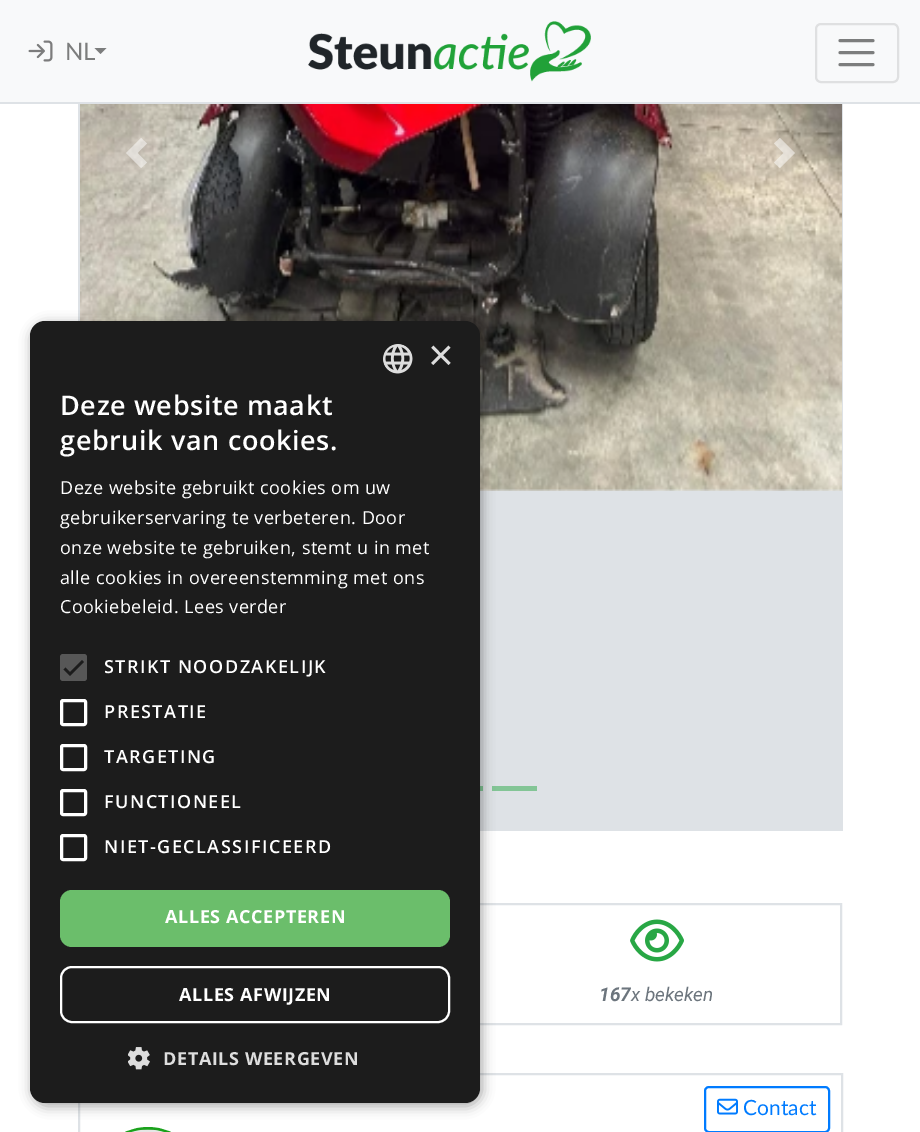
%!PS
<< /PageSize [920 1132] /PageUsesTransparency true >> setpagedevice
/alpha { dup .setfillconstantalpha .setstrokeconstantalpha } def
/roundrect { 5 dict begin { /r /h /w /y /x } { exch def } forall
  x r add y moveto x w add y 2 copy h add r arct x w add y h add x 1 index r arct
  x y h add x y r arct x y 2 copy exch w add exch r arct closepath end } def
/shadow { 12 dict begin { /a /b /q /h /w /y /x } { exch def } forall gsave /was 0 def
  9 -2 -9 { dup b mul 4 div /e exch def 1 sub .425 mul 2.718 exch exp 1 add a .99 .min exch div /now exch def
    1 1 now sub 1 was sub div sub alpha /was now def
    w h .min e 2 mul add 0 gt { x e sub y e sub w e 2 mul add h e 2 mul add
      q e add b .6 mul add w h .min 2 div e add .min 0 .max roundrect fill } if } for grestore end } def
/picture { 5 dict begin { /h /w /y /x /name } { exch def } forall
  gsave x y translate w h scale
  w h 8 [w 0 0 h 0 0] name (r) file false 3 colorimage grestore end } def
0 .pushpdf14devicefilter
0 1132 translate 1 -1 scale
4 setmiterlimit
1 setgray
0 0 920 1132 rectfill
0.973 0.976 0.98 setrgbcolor
0 0 920 102 rectfill
0.871 0.886 0.902 setrgbcolor
0 102 920 2 rectfill
(img1.rgb) 28 40 25 22 picture
/Lato-Regular [24 0 0 -24 0 0] selectfont
0.486 0.49 0.49 setrgbcolor
65 60 moveto (NL) show
newpath 94.5 48 moveto 106.5 48 lineto 100.5 54 lineto closepath fill
(img2.rgb) 308 21 283 61 picture
0.875 0.878 0.882 setrgbcolor
2 setlinewidth
816 24 82 58 5 roundrect stroke
0.486 0.49 0.49 setrgbcolor
3 setlinewidth
1 setlinecap
newpath 840 40.5 moveto 873 40.5 lineto 840 52.5 moveto 873 52.5 lineto 840 64.5 moveto 873 64.5 lineto stroke
0.871 0.886 0.902 setrgbcolor
78 104 765 727 rectfill
(img5.rgb) 80 104 762 387 picture
0.514 0.773 0.588 setrgbcolor
480 786 3 5 rectfill
492 786 45 5 rectfill
0.871 0.886 0.902 setrgbcolor
2 setlinewidth
0 setlinecap
474 904 367 120 rectstroke
79 1074 763 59 rectstroke
0 setgray
32 324 450 782 15 6 0.35 shadow
0.11 setgray
30 321 450 782 15 roundrect fill
(img3.rgb) 383 344 30 30 picture
/LiberationSans-Regular [44 0 0 -44 0 0] selectfont
0.867 setgray
428 370 moveto (×) show
/OpenSans-SemiBold [27 0 0 -27 0 0] selectfont
1 setgray
60 415 moveto 0.6 0 (Deze website maakt) ashow
60 450 moveto 0.6 0 (gebruik van cookies.) ashow
/OpenSans-Regular [18 0 0 -18 0 0] selectfont
60 494 moveto 0.45 0 (Deze website gebruikt cookies om uw) ashow
60 524 moveto 0.45 0 (gebruikerservaring te verbeteren. Door) ashow
60 554 moveto 0.45 0 (onze website te gebruiken, stemt u in met) ashow
60 584 moveto 0.45 0 (alle cookies in overeenstemming met ons) ashow
60 613 moveto 0.45 0 (Cookiebeleid. Lees verder) ashow
0.341 setgray
60 654 27 27 3 roundrect fill
0.11 setgray
2.7 setlinewidth
newpath 64.5 668.5 moveto 70 674 lineto 83 661 lineto stroke
/OpenSans-SemiBold [18 0 0 -18 0 0] selectfont
1 setgray
104 673 moveto 1.5 0 (STRIKT NOODZAKELIJK) ashow
3 setlinewidth
61.5 700.5 24 24 1.5 roundrect stroke
104 718 moveto 1.5 0 (PRESTATIE) ashow
61.5 745.5 24 24 1.5 roundrect stroke
104 763 moveto 1.5 0 (TARGETING) ashow
61.5 790.5 24 24 1.5 roundrect stroke
104 808 moveto 1.5 0 (FUNCTIONEEL) ashow
61.5 835.5 24 24 1.5 roundrect stroke
104 853 moveto 1.5 0 (NIET-GECLASSIFICEERD) ashow
0.42 0.745 0.42 setrgbcolor
60 890 390 57 12 roundrect fill
/OpenSans-Bold [18 0 0 -18 0 0] selectfont
1 setgray
165 923 moveto 0.6 0 (ALLES ACCEPTEREN) ashow
2 setlinewidth
61 967 388 55 11 roundrect stroke
179 1001 moveto 0.6 0 (ALLES AFWIJZEN) ashow
(img4.rgb) 128 1047 22 23 picture
0.867 setgray
163 1065 moveto 0.6 0 (DETAILS WEERGEVEN) ashow
0.5 alpha
1 setgray
newpath 141 138 moveto 126 153 lineto 141 168 lineto 147 162.5 lineto 137.5 153 lineto 147 143.5 lineto closepath fill
newpath 780 138 moveto 774 143.5 lineto 783.5 153 lineto 774 162.5 lineto 780 168 lineto 795 153 lineto closepath fill
1 alpha
(img6.rgb) 630 919 54 43 picture
/Roboto-BoldItalic [19 0 0 -19 0 0] selectfont
0.424 0.459 0.49 setrgbcolor
599 1001 moveto (167) show
/Roboto-Italic [19 0 0 -19 0 0] selectfont
631 1001 moveto (x bekeken) show
0 0.482 1 setrgbcolor
705 1087 124 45 4 roundrect stroke
(img7.rgb) 717 1098 21 17 picture
/Lato-Regular [21 0 0 -21 0 0] selectfont
743 1115 moveto (Contact) show
0.102 0.635 0.11 setrgbcolor
3 setlinewidth
93.5 1128.5 109 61 54.5 roundrect stroke
(img8.rgb) 131 1129 33 3 picture
.poppdf14devicefilter showpage
